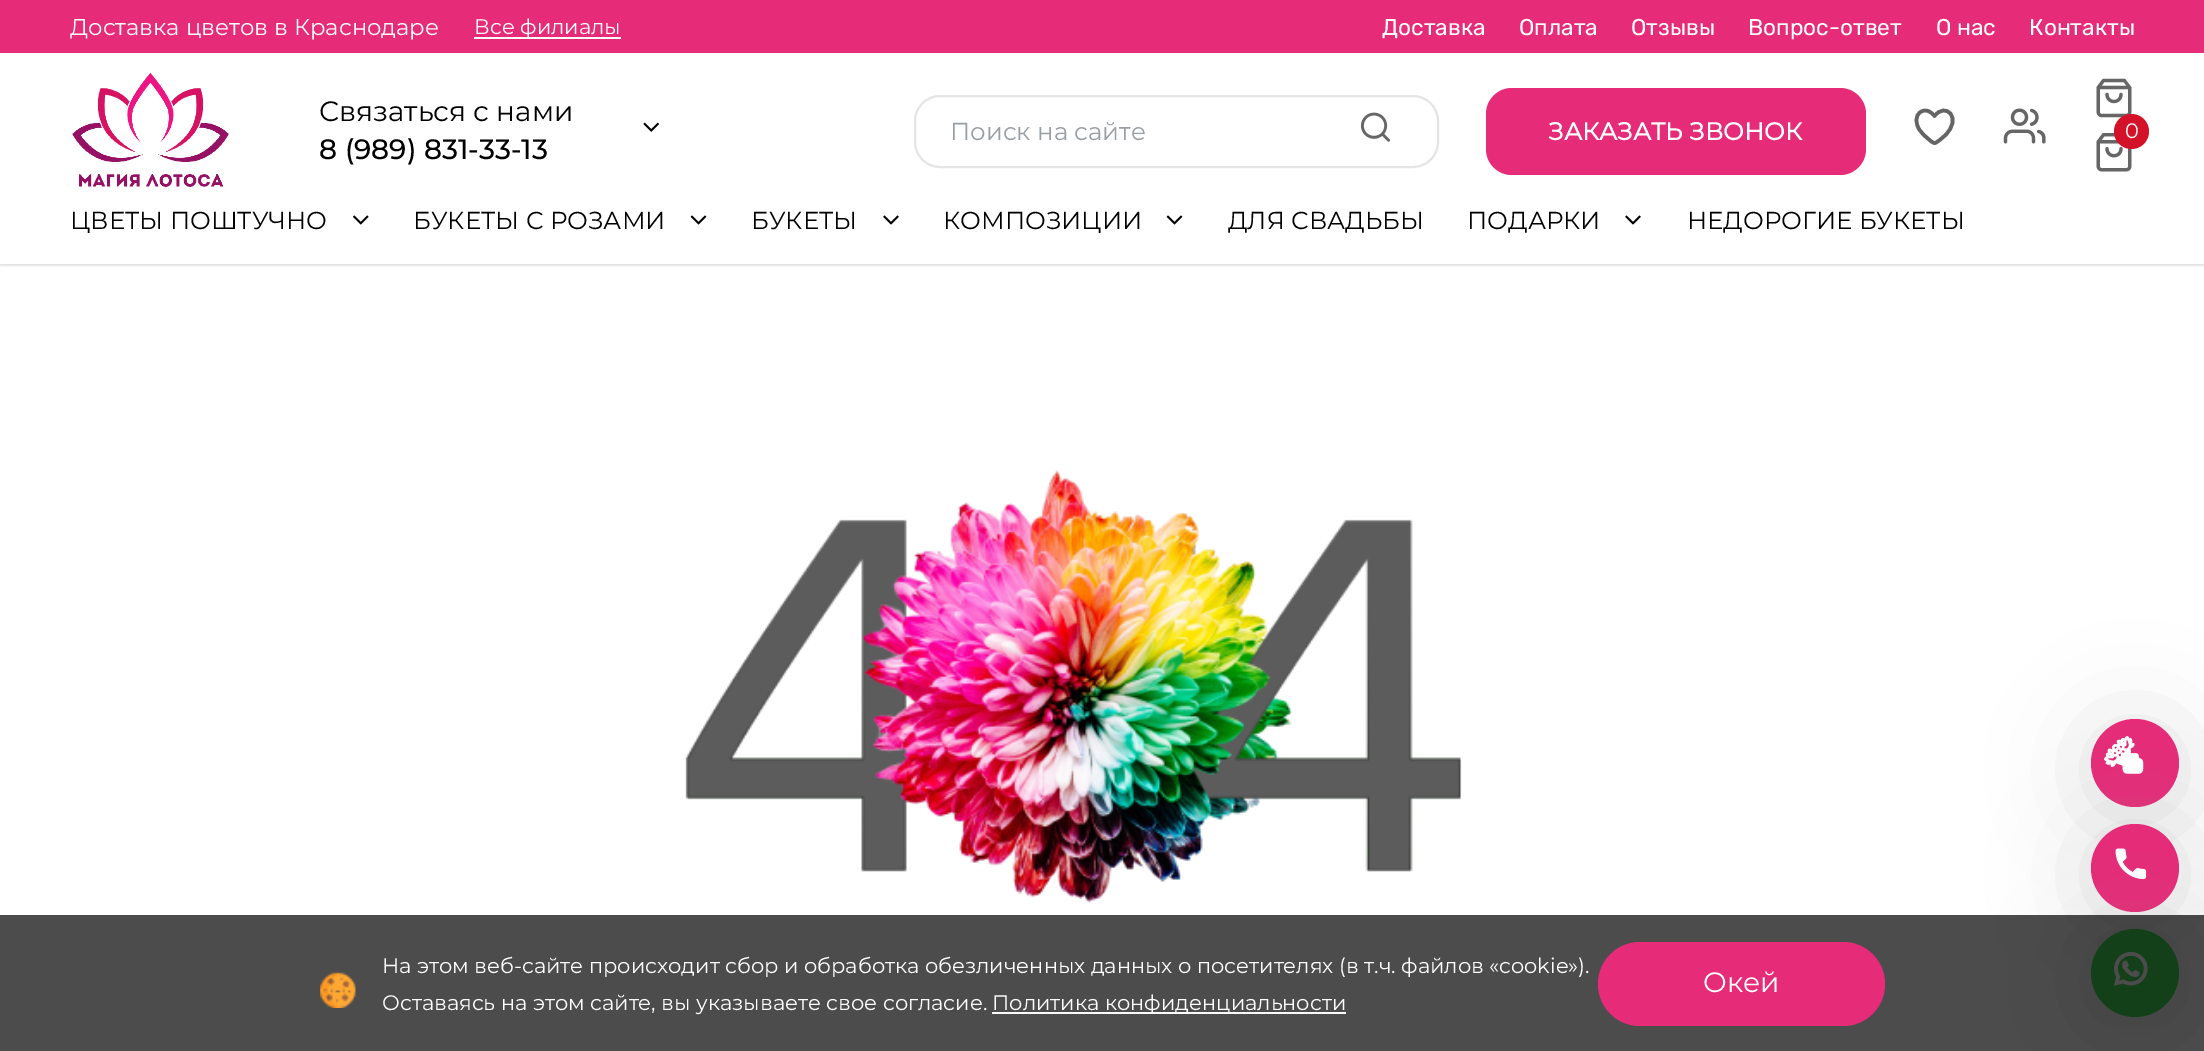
%!PS
<< /PageSize [2204 1051] /PageUsesTransparency true >> setpagedevice
/alpha { dup .setfillconstantalpha .setstrokeconstantalpha } def
/roundrect { 5 dict begin { /r /h /w /y /x } { exch def } forall
  x r add y moveto x w add y 2 copy h add r arct x w add y h add x 1 index r arct
  x y h add x y r arct x y 2 copy exch w add exch r arct closepath end } def
/shadow { 12 dict begin { /a /b /q /h /w /y /x } { exch def } forall gsave /was 0 def
  9 -2 -9 { dup b mul 4 div /e exch def 1 sub .425 mul 2.718 exch exp 1 add a .99 .min exch div /now exch def
    1 1 now sub 1 was sub div sub alpha /was now def
    w h .min e 2 mul add 0 gt { x e sub y e sub w e 2 mul add h e 2 mul add
      q e add b .6 mul add w h .min 2 div e add .min 0 .max roundrect fill } if } for grestore end } def
/picture { 5 dict begin { /h /w /y /x /name } { exch def } forall
  gsave x y translate w h scale
  w h 8 [w 0 0 h 0 0] name (r) file false 3 colorimage grestore end } def
0 .pushpdf14devicefilter
0 1051 translate 1 -1 scale
4 setmiterlimit
1 setgray
0 0 2204 1051 rectfill
gsave
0 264 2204 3 rectclip
0.392 0.392 0.435 setrgbcolor
0 2 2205 264 0 1 0.2 shadow
grestore
0.902 0.169 0.475 setrgbcolor
0 0 2204 53 rectfill
/Montserrat-Regular [22.75 0 0 -22.75 0 0] selectfont
1 setgray
70 35 moveto (Доставка цветов в Краснодаре) show
474 37 147 2 rectfill
/Montserrat-Regular [21 0 0 -21 0 0] selectfont
474 34 moveto (Все филиалы) show
/Rubik-Regular [22.75 0 0 -22.75 0 0] selectfont
1382 35 moveto (Доставка) show
1519 35 moveto (Оплата) show
1631 35 moveto (Отзывы) show
1748 35 moveto (Вопрос-ответ) show
1936 35 moveto (О нас) show
2029 35 moveto (Контакты) show
(img1.rgb) 72 72 157 115 picture
/Montserrat-Regular [28 0 0 -28 0 0] selectfont
0 setgray
319 121 moveto (Связаться с нами) show
/Montserrat-Medium [28 0 0 -28 0 0] selectfont
319 159 moveto (8 \(989\) 831-33-13) show
(img2.rgb) 643 122 16 10 picture
0.898 setgray
2 setlinewidth
915 96 523 71 25 roundrect stroke
/Montserrat-Regular [24.5 0 0 -24.5 0 0] selectfont
0.596 0.62 0.643 setrgbcolor
950 140 moveto (Поиск на сайте) show
(img3.rgb) 1360 112 31 30 picture
0.902 0.169 0.475 setrgbcolor
1486 88 380 87 26 roundrect fill
/Montserrat-Bold [24.5 0 0 -24.5 0 0] selectfont
1 setgray
1548 140 moveto (ЗАКАЗАТЬ ЗВОНОК) show
0.392 setgray
3.6 setlinewidth
1 setlinecap
1 setlinejoin
newpath 1925.5 110.5 moveto 1923.5 110.5 1922 111 1920.5 112 curveto 1914.5 116 1916 124 1919 129 curveto 1921.5 133 1925 136.5 1928.5 139 curveto 1929 139.5 1933 143.5 1935 143 curveto 1938 142 1942.5 137.5 1945 135.5 curveto 1963 118 1945.5 101.5 1934.5 116 curveto 1934.5 116 1930.5 110.5 1925.5 110.5 curveto closepath stroke
(img4.rgb) 2003 108 43 36 picture
(img5.rgb) 2096 78 36 40 picture
(img6.rgb) 2096 133 36 39 picture
0.827 0.071 0.165 setrgbcolor
newpath 2131.5 131.5 17.5 0 360 arc closepath fill
/Montserrat-Regular [21 0 0 -21 0 0] selectfont
1 setgray
2125 138 moveto (0) show
/Montserrat-Regular [24.5 0 0 -24.5 0 0] selectfont
0 setgray
70 229 moveto (ЦВЕТЫ ПОШТУЧНО) show
(img7.rgb) 353 215 16 10 picture
413 229 moveto (БУКЕТЫ С РОЗАМИ) show
(img8.rgb) 690 215 17 10 picture
751 229 moveto (БУКЕТЫ) show
(img9.rgb) 883 215 16 10 picture
943 229 moveto (КОМПОЗИЦИИ) show
(img8.rgb) 1166 215 17 10 picture
1228 229 moveto (ДЛЯ СВАДЬБЫ) show
1467 229 moveto (ПОДАРКИ) show
(img9.rgb) 1625 215 16 10 picture
1687 229 moveto (НЕДОРОГИЕ БУКЕТЫ) show
(img10.rgb) 685 470 777 433 picture
0.522 setgray
2091 726 88 88 44 48 0.25 shadow
0.902 0.169 0.475 setrgbcolor
newpath 2135 763 44 0 360 arc closepath fill
(img11.rgb) 2104 736 40 38 picture
0.522 setgray
2091 831 88 88 44 48 0.25 shadow
0.902 0.169 0.475 setrgbcolor
newpath 2135 868 44 0 360 arc closepath fill
(img12.rgb) 2115 848 32 32 picture
0.522 setgray
2091 936 88 88 44 48 0.25 shadow
0.263 0.847 0.329 setrgbcolor
newpath 2135 973 44 0 360 arc closepath fill
(img13.rgb) 2113 951 35 35 picture
0.7 alpha
0 setgray
0 915 2204 136 rectfill
1 alpha
(img14.rgb) 320 972 36 36 picture
/Montserrat-Regular [21 0 0 -21 0 0] selectfont
1 setgray
382 973 moveto (На этом веб-сайте происходит сбор и обработка обезличенных данных о посетителях \(в т.ч. файлов «cookie»\).) show
382 1010 moveto (Оставаясь на этом сайте, вы указываете свое согласие.) show
992 1012 354 2 rectfill
992 1010 moveto (Политика конфиденциальности) show
0.902 0.169 0.475 setrgbcolor
1598 942 287 84 42 roundrect fill
/Montserrat-Regular [28 0 0 -28 0 0] selectfont
1 setgray
1703 992 moveto (Окей) show
.poppdf14devicefilter showpage
